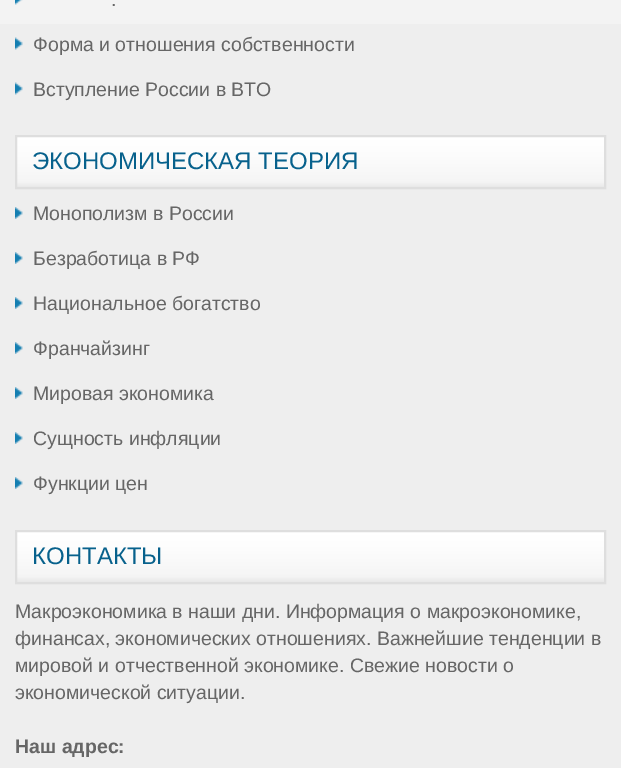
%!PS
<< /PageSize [621 768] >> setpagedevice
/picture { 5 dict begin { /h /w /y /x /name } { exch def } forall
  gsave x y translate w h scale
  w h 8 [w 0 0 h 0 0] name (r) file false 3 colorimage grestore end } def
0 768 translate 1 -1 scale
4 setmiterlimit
0.933 setgray
0 0 621 768 rectfill
0.953 setgray
0 0 621 24 rectfill
(img1.rgb) 15 0 8 5 picture
/LiberationSans-Regular [19.5 0 0 -19.5 0 0] selectfont
0.4 setgray
111 6 moveto (.) show
(img2.rgb) 15 37 8 13 picture
33 51 moveto (Форма и отношения собственности) show
(img2.rgb) 15 82 8 13 picture
33 96 moveto (Вступление России в ВТО) show
(img3.rgb) 17 137 587 50 picture
0.871 setgray
2 setlinewidth
16 136 589 52 rectstroke
/LiberationSans-Regular [24 0 0 -24 0 0] selectfont
0.027 0.38 0.549 setrgbcolor
32 169 moveto (ЭКОНОМИЧЕСКАЯ ТЕОРИЯ) show
(img4.rgb) 15 207 8 12 picture
/LiberationSans-Regular [19.5 0 0 -19.5 0 0] selectfont
0.4 setgray
33 220 moveto (Монополизм в России) show
(img4.rgb) 15 252 8 12 picture
33 265 moveto (Безработица в РФ) show
(img4.rgb) 15 297 8 12 picture
33 310 moveto (Национальное богатство) show
(img4.rgb) 15 342 8 12 picture
33 355 moveto (Франчайзинг) show
(img4.rgb) 15 387 8 12 picture
33 400 moveto (Мировая экономика) show
(img4.rgb) 15 432 8 12 picture
33 445 moveto (Сущность инфляции) show
(img4.rgb) 15 477 8 12 picture
33 490 moveto (Функции цен) show
(img5.rgb) 17 532 587 50 picture
0.871 setgray
16 531 589 52 rectstroke
/LiberationSans-Regular [24 0 0 -24 0 0] selectfont
0.027 0.38 0.549 setrgbcolor
32 564 moveto (КОНТАКТЫ) show
/LiberationSans-Regular [19.5 0 0 -19.5 0 0] selectfont
0.4 setgray
15 618 moveto (Макроэкономика в наши дни. Информация о макроэкономике,) show
15 645 moveto (финансах, экономических отношениях. Важнейшие тенденции в) show
15 672 moveto (мировой и отчественной экономике. Свежие новости о) show
15 699 moveto (экономической ситуации.) show
/LiberationSans-Bold [19.5 0 0 -19.5 0 0] selectfont
15 753 moveto (Наш адрес:) show
showpage
